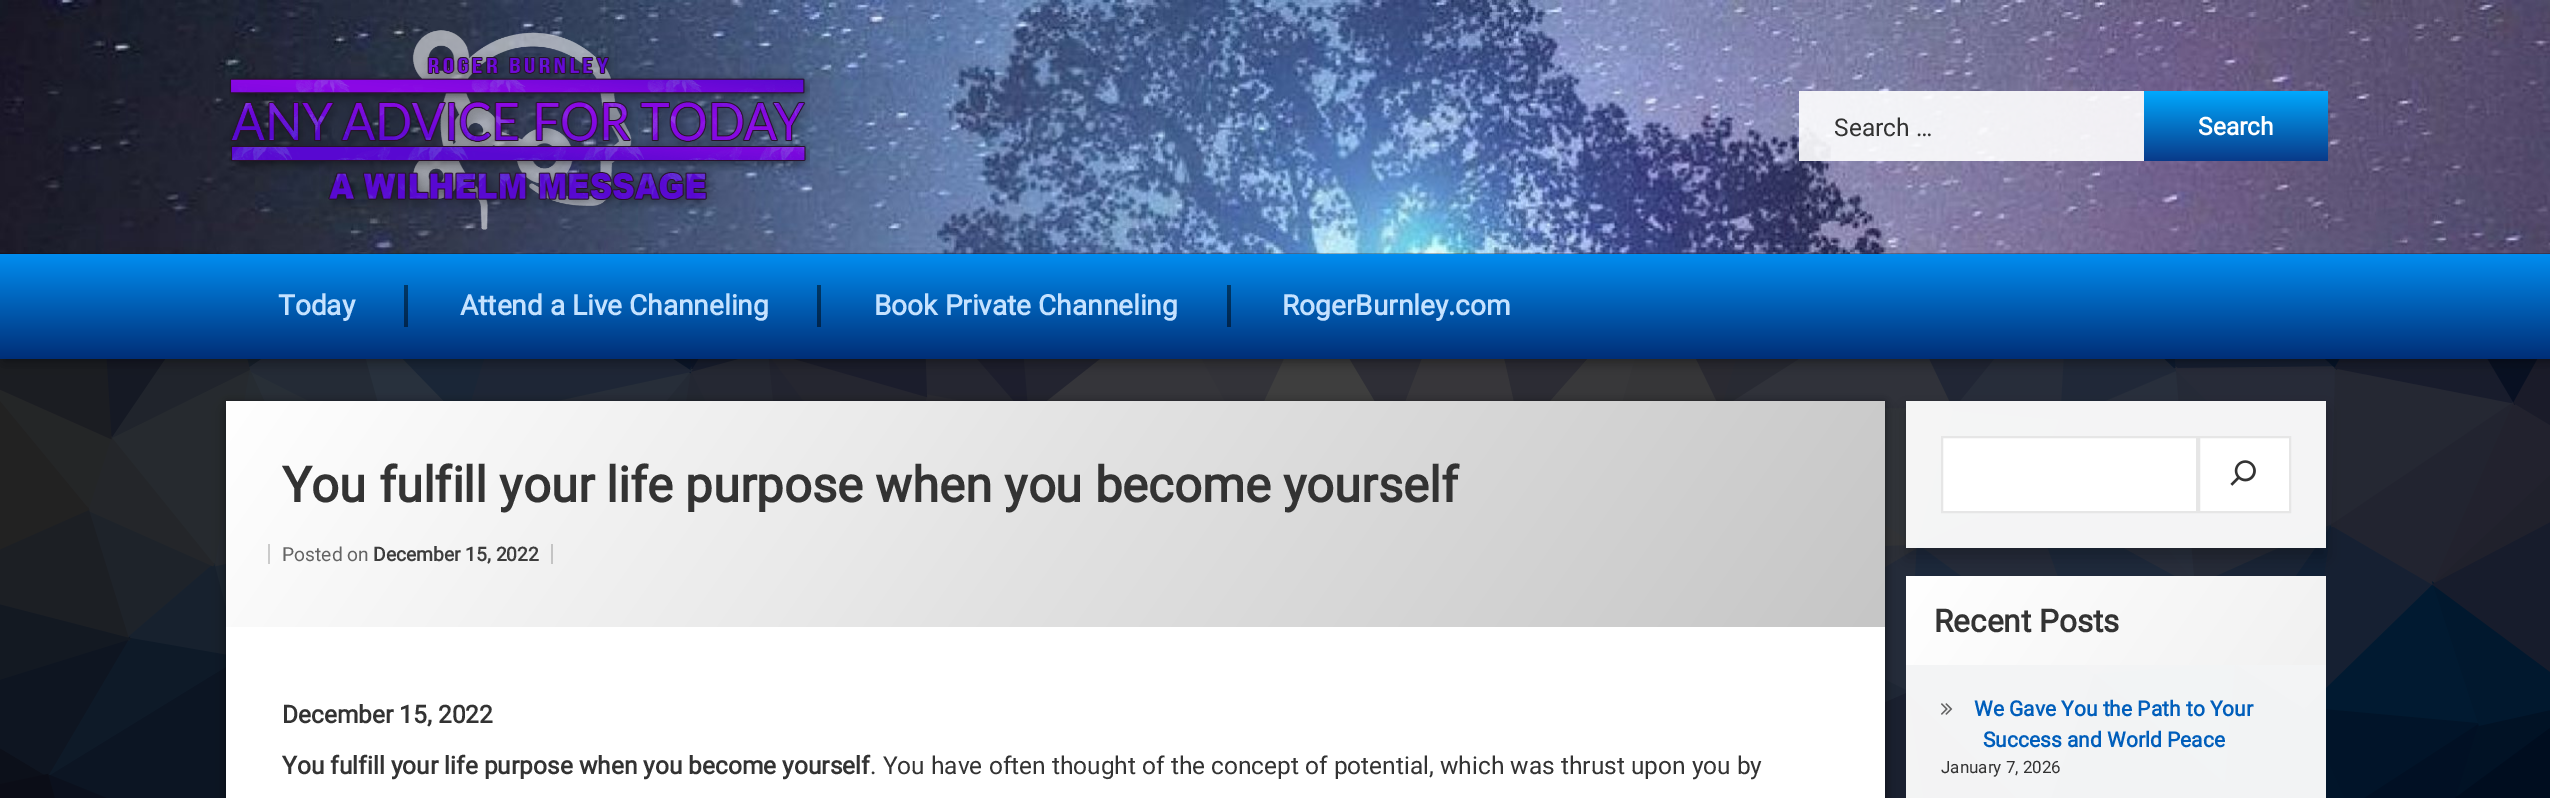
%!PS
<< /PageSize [2550 798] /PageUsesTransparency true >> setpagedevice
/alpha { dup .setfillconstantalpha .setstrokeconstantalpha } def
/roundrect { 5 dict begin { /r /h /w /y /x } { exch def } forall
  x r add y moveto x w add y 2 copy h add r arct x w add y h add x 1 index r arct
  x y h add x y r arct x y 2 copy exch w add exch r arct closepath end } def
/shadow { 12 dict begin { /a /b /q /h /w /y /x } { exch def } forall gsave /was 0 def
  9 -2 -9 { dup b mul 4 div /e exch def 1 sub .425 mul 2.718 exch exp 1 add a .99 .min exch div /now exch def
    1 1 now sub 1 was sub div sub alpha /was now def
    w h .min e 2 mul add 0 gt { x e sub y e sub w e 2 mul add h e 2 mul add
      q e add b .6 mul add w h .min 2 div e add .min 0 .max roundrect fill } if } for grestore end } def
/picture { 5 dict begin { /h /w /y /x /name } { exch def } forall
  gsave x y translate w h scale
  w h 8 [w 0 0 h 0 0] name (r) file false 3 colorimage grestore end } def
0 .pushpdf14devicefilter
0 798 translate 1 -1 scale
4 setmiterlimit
1 setgray
0 0 2550 798 rectfill
(img5.rgb) 0 253 2550 545 picture
0 setgray
4 4 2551 358 0 6 0.3 shadow
0 0 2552 359 0 13 0.2 shadow
(img1.rgb) 0 0 2550 254 picture
(img2.rgb) 229 30 581 200 picture
0.9 alpha
1 setgray
1799 91 345 70 rectfill
/Roboto-Regular [24.5 0 0 -24.5 0 0] selectfont
1 alpha
0.2 setgray
1834 136 moveto (Search …) show
gsave newpath 2144 91 moveto 2328 91 lineto 2328 161 lineto 2144 161 lineto closepath clip newpath
<< /ShadingType 2 /ColorSpace /DeviceRGB /Coords [2236 91 2236 161] /Extend [true true] /Function << /FunctionType 2 /Domain [0 1] /C0 [0 0.663 1] /C1 [0.035 0.227 0.537] /N 1 >> >> shfill grestore
/Roboto-Bold [24.5 0 0 -24.5 0 0] selectfont
1 setgray
2198 135 moveto (Search) show
gsave newpath 0 254 moveto 2550 254 lineto 2550 359 lineto 0 359 lineto closepath clip newpath
<< /ShadingType 2 /ColorSpace /DeviceRGB /Coords [1276 254 1276 359] /Extend [true true] /Function << /FunctionType 2 /Domain [0 1] /C0 [0 0.553 0.941] /C1 [0 0.18 0.467] /N 1 >> >> shfill grestore
/Roboto-Bold [28 0 0 -28 0 0] selectfont
0.773 0.886 1 setrgbcolor
278 315 moveto (Today) show
0.5 alpha
0 setgray
404 285 4 42 rectfill
1 alpha
0.773 0.886 1 setrgbcolor
460 315 moveto (Attend a Live Channeling) show
0.5 alpha
0 setgray
817 285 4 42 rectfill
1 alpha
0.773 0.886 1 setrgbcolor
874 315 moveto (Book Private Channeling) show
0.5 alpha
0 setgray
1227 285 4 42 rectfill
1 alpha
0.773 0.886 1 setrgbcolor
1282 315 moveto (RogerBurnley.com) show
0 setgray
226 401 1659 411 0 4.5 0.25 shadow
gsave
newpath 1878 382 moveto 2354 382 lineto 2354 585 lineto 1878 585 lineto closepath 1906 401 moveto 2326 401 lineto 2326 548 lineto 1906 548 lineto closepath eoclip newpath
1906 410 420 147 0 9 0.25 shadow
grestore
0.95 alpha
1 setgray
1906 401 420 147 rectfill
1906 665 420 133 rectfill
1 alpha
gsave newpath 1906 576 moveto 2326 576 lineto 2326 665 lineto 1906 665 lineto closepath clip newpath
<< /ShadingType 2 /ColorSpace /DeviceRGB /Coords [1954 507 2278 734] /Extend [true true] /Function << /FunctionType 2 /Domain [0 1] /C0 [1 1 1] /C1 [0.945 0.945 0.945] /N 1 >> >> shfill grestore
0 setgray
226 410 1659 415 0 9 0.25 shadow
1 setgray
226 627 1659 171 rectfill
gsave newpath 226 401 moveto 1885 401 lineto 1885 627 lineto 226 627 lineto closepath clip newpath
<< /ShadingType 2 /ColorSpace /DeviceRGB /Coords [446 87 1665 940] /Extend [true true] /Function << /FunctionType 2 /Domain [0 1] /C0 [1 1 1] /C1 [0.776 0.776 0.776] /N 1 >> >> shfill grestore
/Roboto-Bold [49 0 0 -49 0 0] selectfont
0.2 setgray
282 502 moveto (You fulfill your life purpose when you become yourself) show
0.796 setgray
268 544 2 20 rectfill
/Roboto-Regular [19.25 0 0 -19.25 0 0] selectfont
0.392 setgray
282 561 moveto (Posted on) show
/Roboto-Bold [19.25 0 0 -19.25 0 0] selectfont
0.239 setgray
373 561 moveto (December 15, 2022) show
0.769 setgray
551 544 2 20 rectfill
/Roboto-Bold [24.5 0 0 -24.5 0 0] selectfont
0.2 setgray
282 723 moveto (December 15, 2022) show
282 774 moveto (You fulfill your life purpose when you become yourself) show
/Roboto-Regular [24.5 0 0 -24.5 0 0] selectfont
870 774 moveto (. You have often thought of the concept of potential, which was thrust upon you by) show
1 setgray
newpath 1942 437 moveto 2197 437 lineto 2197 512 lineto 1942 512 lineto closepath gsave fill grestore
0.902 setgray
2 setlinewidth
stroke
1 setgray
newpath 2199 437 moveto 2290 437 lineto 2290 512 lineto 2199 512 lineto closepath gsave fill grestore
0.902 setgray
stroke
(img3.rgb) 2230 460 26 26 picture
/Roboto-Bold [31.5 0 0 -31.5 0 0] selectfont
0.2 setgray
1934 632 moveto (Recent Posts) show
(img4.rgb) 1941 703 12 12 picture
/Roboto-Bold [21 0 0 -21 0 0] selectfont
0 0.369 0.733 setrgbcolor
1974 716 moveto (We Gave You the Path to Your) show
1983 747 moveto (Success and World Peace) show
/Roboto-Regular [17 0 0 -17 0 0] selectfont
0.2 setgray
1941 773 moveto (January 7, 2026) show
.poppdf14devicefilter showpage
